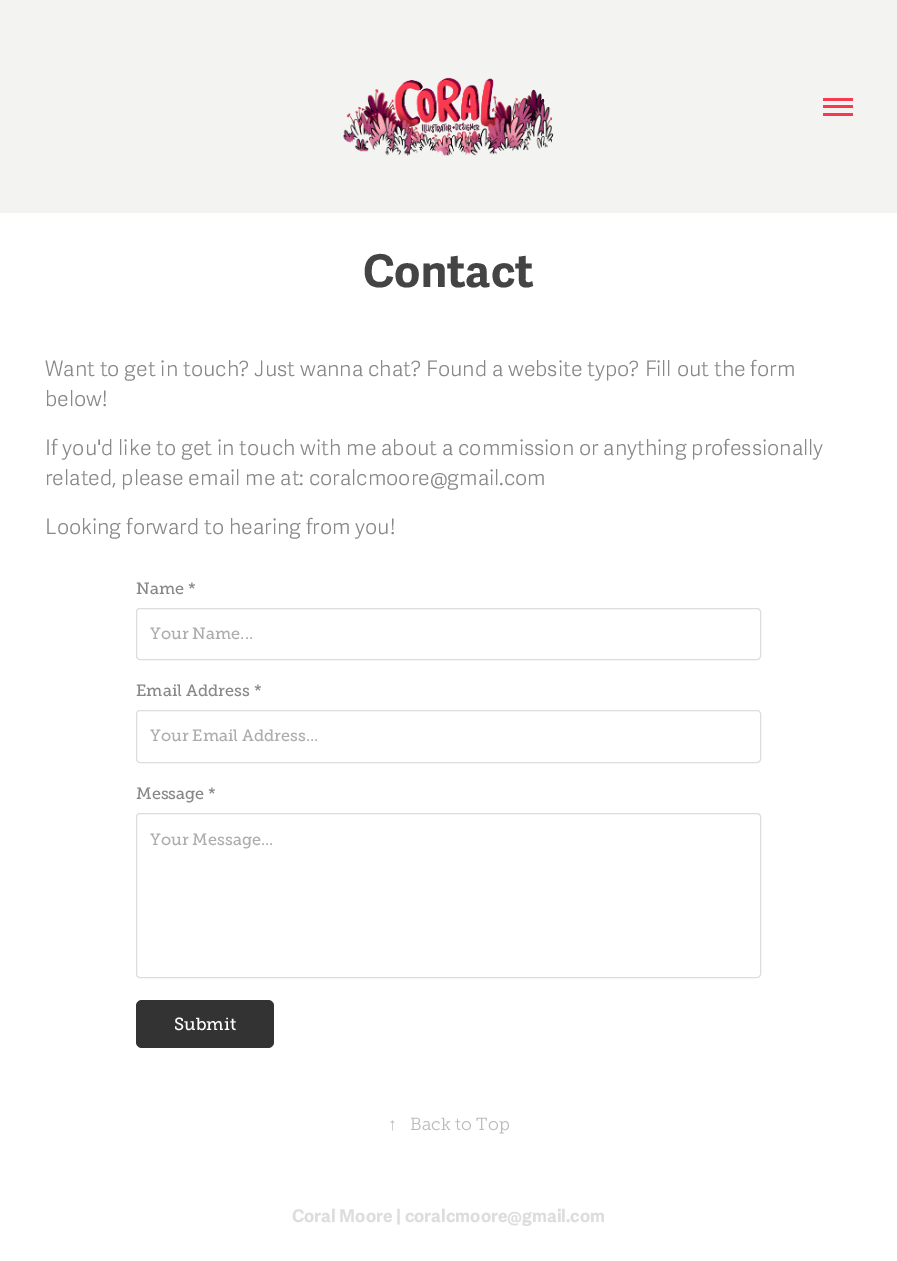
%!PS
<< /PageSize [897 1261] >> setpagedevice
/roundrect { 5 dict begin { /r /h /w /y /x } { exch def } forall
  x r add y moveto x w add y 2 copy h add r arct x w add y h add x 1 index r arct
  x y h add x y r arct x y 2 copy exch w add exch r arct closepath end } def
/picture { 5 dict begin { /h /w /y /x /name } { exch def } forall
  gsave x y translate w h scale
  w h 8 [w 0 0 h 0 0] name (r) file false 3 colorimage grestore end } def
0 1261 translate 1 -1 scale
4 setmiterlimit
1 setgray
0 0 897 1261 rectfill
0.953 0.953 0.949 setrgbcolor
0 0 897 213 rectfill
(img1.rgb) 343 77 211 79 picture
0.973 0.224 0.31 setrgbcolor
823 98 30 3 rectfill
823 105 30 3 rectfill
823 113 30 3 rectfill
/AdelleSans-Bold [45 0 0 -45 0 0] selectfont
0.267 setgray
363 287 moveto (Contact) show
/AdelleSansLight-Light [21.25 0 0 -21.25 0 0] selectfont
0.533 setgray
45 376 moveto (Want to get in touch? Just wanna chat? Found a website typo? Fill out the form) show
45 406 moveto (below!) show
45 455 moveto (If you'd like to get in touch with me about a commission or anything professionally) show
45 485 moveto (related, please email me at: coralcmoore@gmail.com) show
45 534 moveto (Looking forward to hearing from you!) show
/MuseoSlab-Regular [16.25 0 0 -16.25 0 0] selectfont
136 594 moveto (Name *) show
0.867 setgray
136.5 608.5 624 51 3.5 roundrect stroke
0.678 setgray
150 639 moveto (Your Name...) show
0.533 setgray
136 696 moveto (Email Address *) show
0.867 setgray
136.5 710.5 624 52 3.5 roundrect stroke
0.678 setgray
150 741 moveto (Your Email Address...) show
0.533 setgray
136 799 moveto (Message *) show
0.867 setgray
136.5 813.5 624 164 3.5 roundrect stroke
0.678 setgray
150 845 moveto (Your Message...) show
0.2 setgray
136 1000 138 48 6 roundrect fill
/MuseoSlab-Regular [17.5 0 0 -17.5 0 0] selectfont
1 setgray
174 1030 moveto (Submit) show
/LiberationSerif-Regular [17.5 0 0 -17.5 0 0] selectfont
0.733 setgray
388 1130 moveto (↑) show
/MuseoSlab-Light [17.5 0 0 -17.5 0 0] selectfont
410 1130 moveto (Back to Top) show
/AdelleSans-Bold [17.5 0 0 -17.5 0 0] selectfont
0.867 setgray
292 1222 moveto (Coral Moore | coralcmoore@gmail.com) show
showpage
